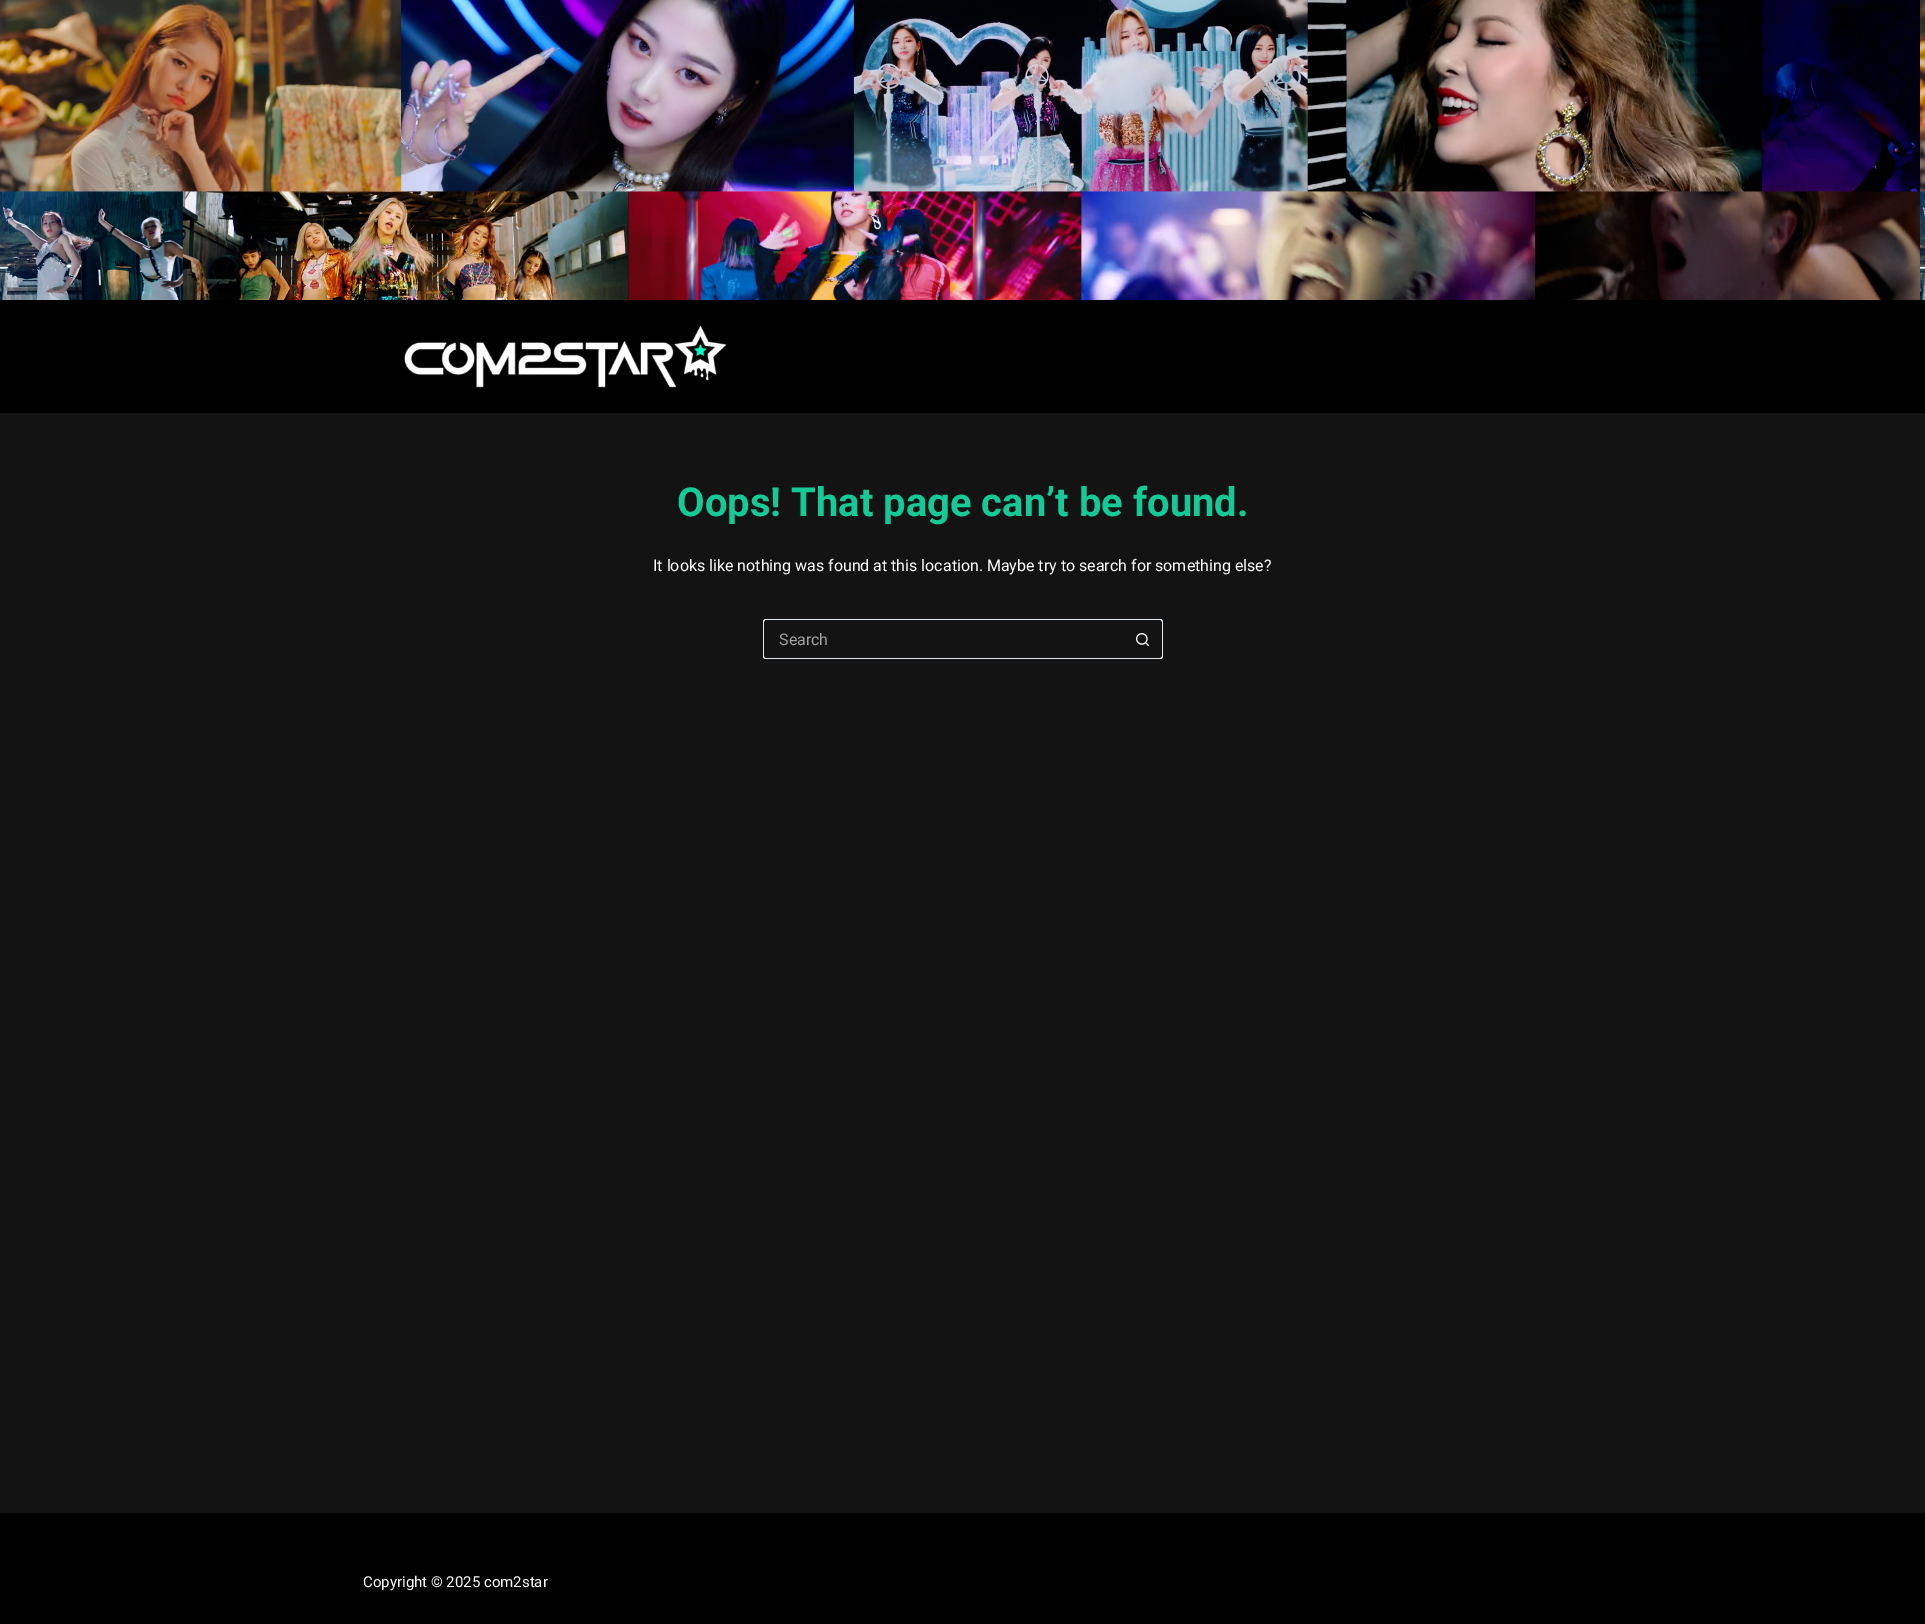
%!PS
<< /PageSize [1925 1624] >> setpagedevice
/picture { 5 dict begin { /h /w /y /x /name } { exch def } forall
  gsave x y translate w h scale
  w h 8 [w 0 0 h 0 0] name (r) file false 3 colorimage grestore end } def
0 1624 translate 1 -1 scale
4 setmiterlimit
0.075 setgray
0 0 1925 1624 rectfill
(img1.rgb) 0 0 1925 300 picture
0 setgray
0 300 1925 113 rectfill
(img2.rgb) 404 325 323 63 picture
/Roboto-Bold [40 0 0 -40 0 0] selectfont
0.086 0.792 0.592 setrgbcolor
677 516 moveto (Oops! That page can’t be found.) show
/Roboto-Regular [16 0 0 -16 0 0] selectfont
1 setgray
653 571 moveto (It looks like nothing was found at this location. Maybe try to search for something else?) show
0.882 0.91 0.929 setrgbcolor
newpath 766 619 moveto 1123 619 lineto 1123 659 lineto 766 659 lineto 764 659 763 658 763 656 curveto 763 622 lineto 763 620 764 619 766 619 curveto closepath 766 620 moveto 1123 620 lineto 1123 658 lineto 765 658 lineto 763 656 764 651 764 650 curveto 764 622 lineto 765 620 lineto closepath eofill
0.631 setgray
779 645 moveto (Search) show
0.882 0.91 0.929 setrgbcolor
newpath 1123 619 moveto 1160 619 lineto 1162 619 1163 620 1163 622 curveto 1163 656 lineto 1163 658 1162 659 1160 659 curveto 1123 659 lineto closepath 1123 620 moveto 1160 620 lineto 1161 620 1162 621 1162 622 curveto 1162 656 lineto 1162 657 1161 658 1160 658 curveto 1123 658 lineto closepath eofill
(img3.rgb) 1136 633 13 13 picture
0 0 0.004 setrgbcolor
0 1513 1925 111 rectfill
/Roboto-Regular [15 0 0 -15 0 0] selectfont
1 setgray
363 1587 moveto (Copyright © 2025 com2star) show
showpage
